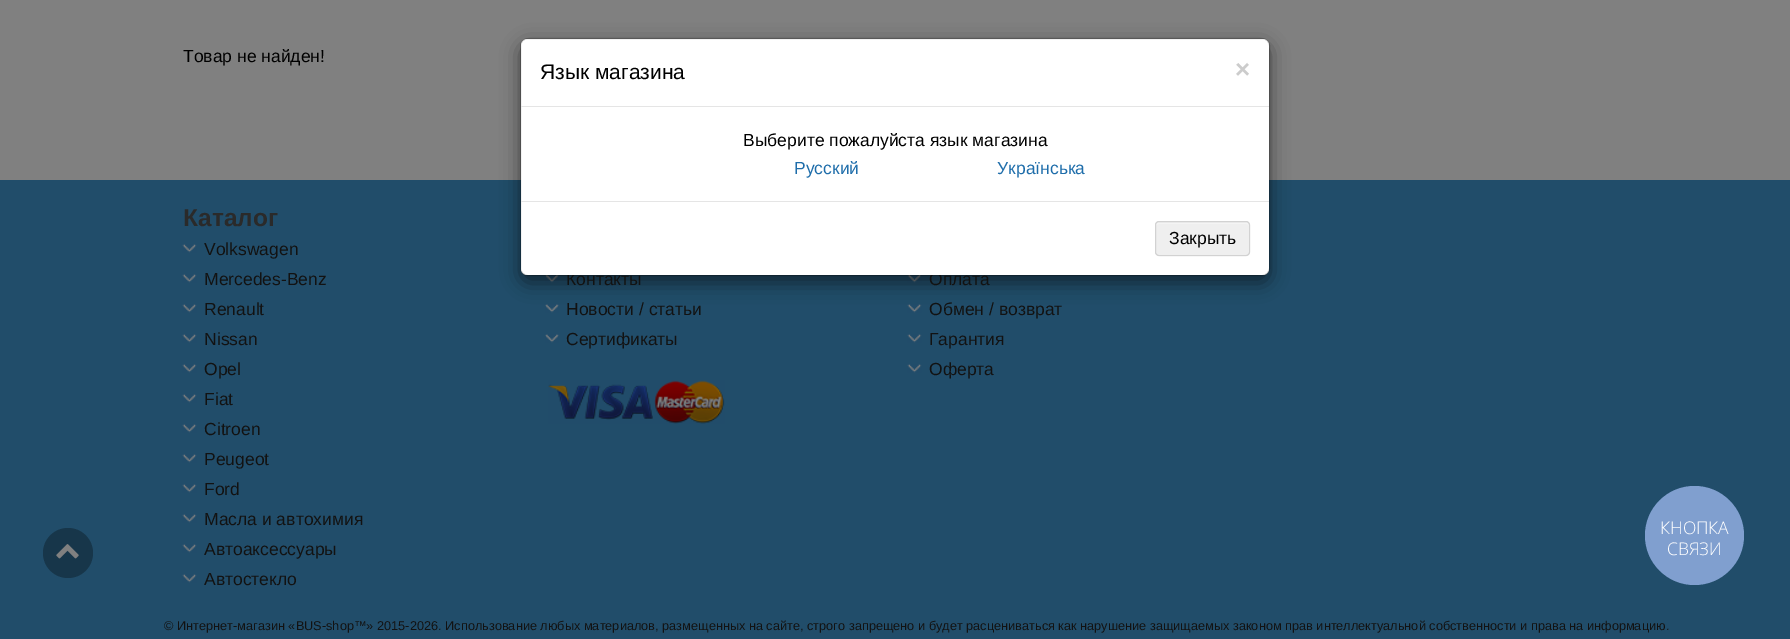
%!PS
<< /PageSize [1790 639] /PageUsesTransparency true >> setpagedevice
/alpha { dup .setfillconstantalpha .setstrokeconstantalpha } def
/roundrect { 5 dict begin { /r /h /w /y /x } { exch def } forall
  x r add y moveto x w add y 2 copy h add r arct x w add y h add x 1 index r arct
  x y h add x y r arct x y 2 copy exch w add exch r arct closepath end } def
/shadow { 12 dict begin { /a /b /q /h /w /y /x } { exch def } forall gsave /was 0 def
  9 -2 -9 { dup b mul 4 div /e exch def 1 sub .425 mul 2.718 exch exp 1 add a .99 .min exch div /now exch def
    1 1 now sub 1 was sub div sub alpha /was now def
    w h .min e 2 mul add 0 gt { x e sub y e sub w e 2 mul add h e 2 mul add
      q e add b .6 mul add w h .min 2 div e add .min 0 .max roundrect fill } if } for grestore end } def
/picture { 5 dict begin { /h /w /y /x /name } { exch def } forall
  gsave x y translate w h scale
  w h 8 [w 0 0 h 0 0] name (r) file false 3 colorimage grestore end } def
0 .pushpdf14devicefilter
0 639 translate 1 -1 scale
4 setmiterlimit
0.502 setgray
0 0 1790 639 rectfill
/LiberationSans-Regular [17.5 0 0 -17.5 0 0] selectfont
0 setgray
183 62 moveto (Товар не найден!) show
0.129 0.302 0.416 setrgbcolor
0 180 1790 459 rectfill
(img3.rgb) 545 275 14 8 picture
(img4.rgb) 545 304 14 9 picture
(img6.rgb) 907 275 15 8 picture
(img2.rgb) 907 304 15 9 picture
0 setgray
520 44 750 239 8 9.5 0.5 shadow
0.071 setgray
566 285 moveto (Контакты) show
929 285 moveto (Оплата) show
1 setgray
521 39 748 236 6 roundrect fill
0.2 alpha
0 setgray
520.5 38.5 749 237 7.5 roundrect stroke
1 alpha
0.898 setgray
521 106 748 1 rectfill
/LiberationSans-Regular [21 0 0 -21 0 0] selectfont
0 setgray
540 79 moveto (Язык магазина) show
/LiberationSans-Bold [26 0 0 -26 0 0] selectfont
0.8 setgray
1235 78 moveto (×) show
/LiberationSans-Regular [17.5 0 0 -17.5 0 0] selectfont
0 setgray
743 146 moveto (Выберите пожалуйста язык магазина) show
0.118 0.427 0.667 setrgbcolor
794 174 moveto (Русский) show
997 174 moveto (Українська) show
0.898 setgray
521 201 748 1 rectfill
0.937 setgray
1155 221 95 35 4 roundrect fill
0.957 setgray
newpath 1159 224 moveto 1246 224 lineto 1248 224 1249 225 1249 226 curveto 1249 225 1248 223 1247 223 curveto 1158 223 lineto 1157 223 1156 225 1156 226 curveto 1156 225 1157 224 1159 224 curveto closepath fill
0.12 alpha
0 setgray
1155.5 221.5 94 34 3.5 roundrect stroke
1 alpha
1169 244 moveto (Закрыть) show
0.09 0.212 0.29 setrgbcolor
newpath 68 553 25 0 360 arc closepath fill
(img1.rgb) 56 544 23 15 picture
/LiberationSans-Bold [24.5 0 0 -24.5 0 0] selectfont
0.165 setgray
183 226 moveto (Каталог) show
(img2.rgb) 182 244 15 9 picture
/LiberationSans-Regular [17.5 0 0 -17.5 0 0] selectfont
0.071 setgray
204 255 moveto (Volkswagen) show
(img2.rgb) 182 274 15 9 picture
204 285 moveto (Mercedes-Benz) show
(img2.rgb) 182 304 15 9 picture
204 315 moveto (Renault) show
(img2.rgb) 182 334 15 9 picture
204 345 moveto (Nissan) show
(img2.rgb) 182 364 15 9 picture
204 375 moveto (Opel) show
(img2.rgb) 182 394 15 9 picture
204 405 moveto (Fiat) show
(img2.rgb) 182 424 15 9 picture
204 435 moveto (Citroen) show
(img2.rgb) 182 454 15 9 picture
204 465 moveto (Peugeot) show
(img2.rgb) 182 484 15 9 picture
204 495 moveto (Ford) show
(img2.rgb) 182 514 15 9 picture
204 525 moveto (Масла и автохимия) show
(img2.rgb) 182 544 15 9 picture
204 555 moveto (Автоаксессуары) show
(img2.rgb) 182 574 15 9 picture
204 585 moveto (Автостекло) show
566 315 moveto (Новости / статьи) show
(img4.rgb) 545 334 14 9 picture
566 345 moveto (Сертификаты) show
(img5.rgb) 548 380 177 44 picture
929 315 moveto (Обмен / возврат) show
(img2.rgb) 907 334 15 9 picture
929 345 moveto (Гарантия) show
(img2.rgb) 907 364 15 9 picture
929 375 moveto (Оферта) show
/LiberationSans-Regular [12.75 0 0 -12.75 0 0] selectfont
164 630 moveto (© Интернет-магазин «BUS-shop™» 2015-2026. Использование любых материалов, размещенных на сайте, строго запрещено и будет расцениваться как нарушение защищаемых законом прав интеллектуальной собственности и права на информацию.) show
0.502 0.624 0.812 setrgbcolor
newpath 1694.5 535.5 49.5 0 360 arc closepath fill
/OpenSans-Light [17.5 0 0 -17.5 0 0] selectfont
1 setgray
1660 534 moveto (КНОПКА) show
1667 555 moveto (СВЯЗИ) show
.poppdf14devicefilter showpage
